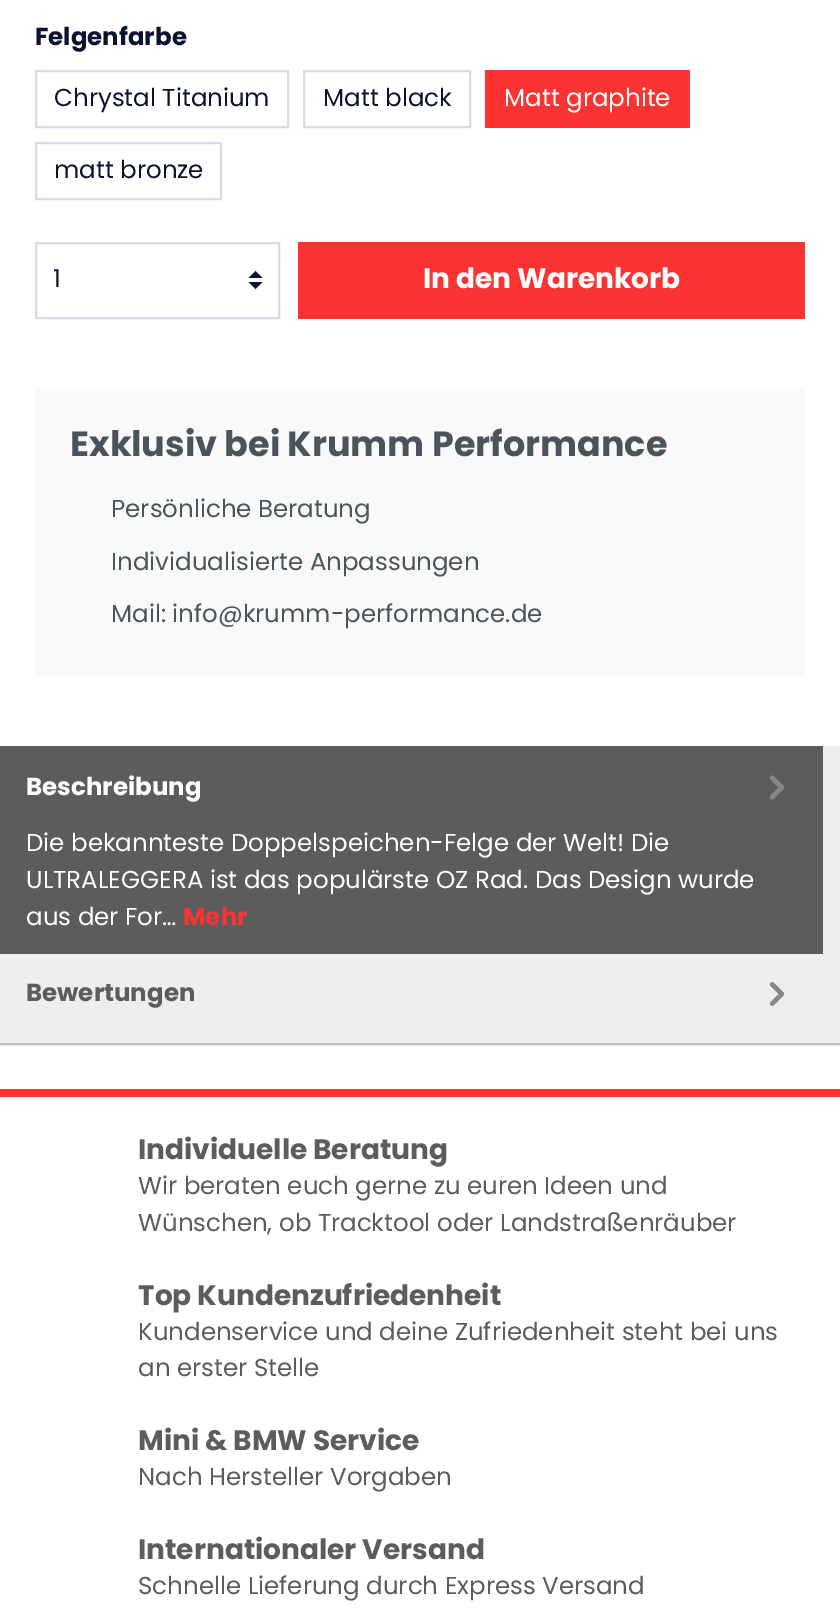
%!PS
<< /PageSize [840 1611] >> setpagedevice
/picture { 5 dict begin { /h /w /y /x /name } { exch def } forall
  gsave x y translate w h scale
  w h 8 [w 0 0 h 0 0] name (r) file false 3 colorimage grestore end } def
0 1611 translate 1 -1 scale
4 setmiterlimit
1 setgray
0 0 840 1611 rectfill
/Poppins-Bold [24.5 0 0 -24.5 0 0] selectfont
0.047 0.075 0.196 setrgbcolor
35 45 moveto (Felgenfarbe) show
0.855 0.855 0.898 setrgbcolor
2 setlinewidth
36 71 252 56 rectstroke
/Poppins-Regular [24.5 0 0 -24.5 0 0] selectfont
0.047 0.075 0.196 setrgbcolor
54 106 moveto (Chrystal Titanium) show
0.855 0.855 0.898 setrgbcolor
304 71 166 56 rectstroke
0.047 0.075 0.196 setrgbcolor
323 106 moveto (Matt black) show
0.98 0.2 0.2 setrgbcolor
485 70 205 58 rectfill
1 setgray
504 106 moveto (Matt graphite) show
0.855 0.855 0.898 setrgbcolor
36 143 185 56 rectstroke
0.047 0.075 0.196 setrgbcolor
54 178 moveto (matt bronze) show
newpath 255.5 271 moveto 248.5 278 lineto 262.5 278 lineto closepath 255.5 289 moveto 248.5 282 lineto 262.5 282 lineto closepath fill
0.855 0.855 0.898 setrgbcolor
36 243 243 75 rectstroke
0.047 0.075 0.196 setrgbcolor
53 287 moveto (1) show
0.98 0.2 0.2 setrgbcolor
298 242 507 77 rectfill
/Poppins-Bold [28 0 0 -28 0 0] selectfont
1 setgray
423 288 moveto (In den Warenkorb) show
0.976 setgray
35 389 770 287 rectfill
/Poppins-Bold [35 0 0 -35 0 0] selectfont
0.29 0.329 0.357 setrgbcolor
70 456 moveto (Exklusiv bei Krumm Performance) show
/Poppins-Regular [24.5 0 0 -24.5 0 0] selectfont
111 517 moveto (Persönliche Beratung) show
111 570 moveto (Individualisierte Anpassungen) show
111 622 moveto (Mail: info@krumm-performance.de) show
0.933 setgray
0 746 840 301 rectfill
0.737 0.757 0.78 setrgbcolor
0 1043 840 2 rectfill
0.361 setgray
0 746 823 208 rectfill
/Poppins-Bold [24.5 0 0 -24.5 0 0] selectfont
1 setgray
26 795 moveto (Beschreibung) show
(img1.rgb) 769 775 16 25 picture
/Poppins-Regular [24.5 0 0 -24.5 0 0] selectfont
26 851 moveto (Die bekannteste Doppelspeichen-Felge der Welt! Die) show
26 888 moveto (ULTRALEGGERA ist das populärste OZ Rad. Das Design wurde) show
26 925 moveto (aus der For…) show
/Poppins-Bold [24.5 0 0 -24.5 0 0] selectfont
0.98 0.2 0.2 setrgbcolor
183 925 moveto (Mehr) show
0.361 setgray
26 1001 moveto (Bewertungen) show
(img2.rgb) 769 982 16 24 picture
0.98 0.2 0.2 setrgbcolor
0 1089 840 8 rectfill
/Poppins-Bold [28 0 0 -28 0 0] selectfont
0.361 setgray
138 1159 moveto (Individuelle Beratung) show
/Poppins-Regular [24.5 0 0 -24.5 0 0] selectfont
138 1194 moveto (Wir beraten euch gerne zu euren Ideen und) show
138 1231 moveto (Wünschen, ob Tracktool oder Landstraßenräuber) show
/Poppins-Bold [28 0 0 -28 0 0] selectfont
138 1305 moveto (Top Kundenzufriedenheit) show
/Poppins-Regular [24.5 0 0 -24.5 0 0] selectfont
138 1340 moveto (Kundenservice und deine Zufriedenheit steht bei uns) show
138 1376 moveto (an erster Stelle) show
/Poppins-Bold [28 0 0 -28 0 0] selectfont
138 1450 moveto (Mini & BMW Service) show
/Poppins-Regular [24.5 0 0 -24.5 0 0] selectfont
138 1485 moveto (Nach Hersteller Vorgaben) show
/Poppins-Bold [28 0 0 -28 0 0] selectfont
138 1559 moveto (Internationaler Versand) show
/Poppins-Regular [24.5 0 0 -24.5 0 0] selectfont
138 1594 moveto (Schnelle Lieferung durch Express Versand) show
showpage
